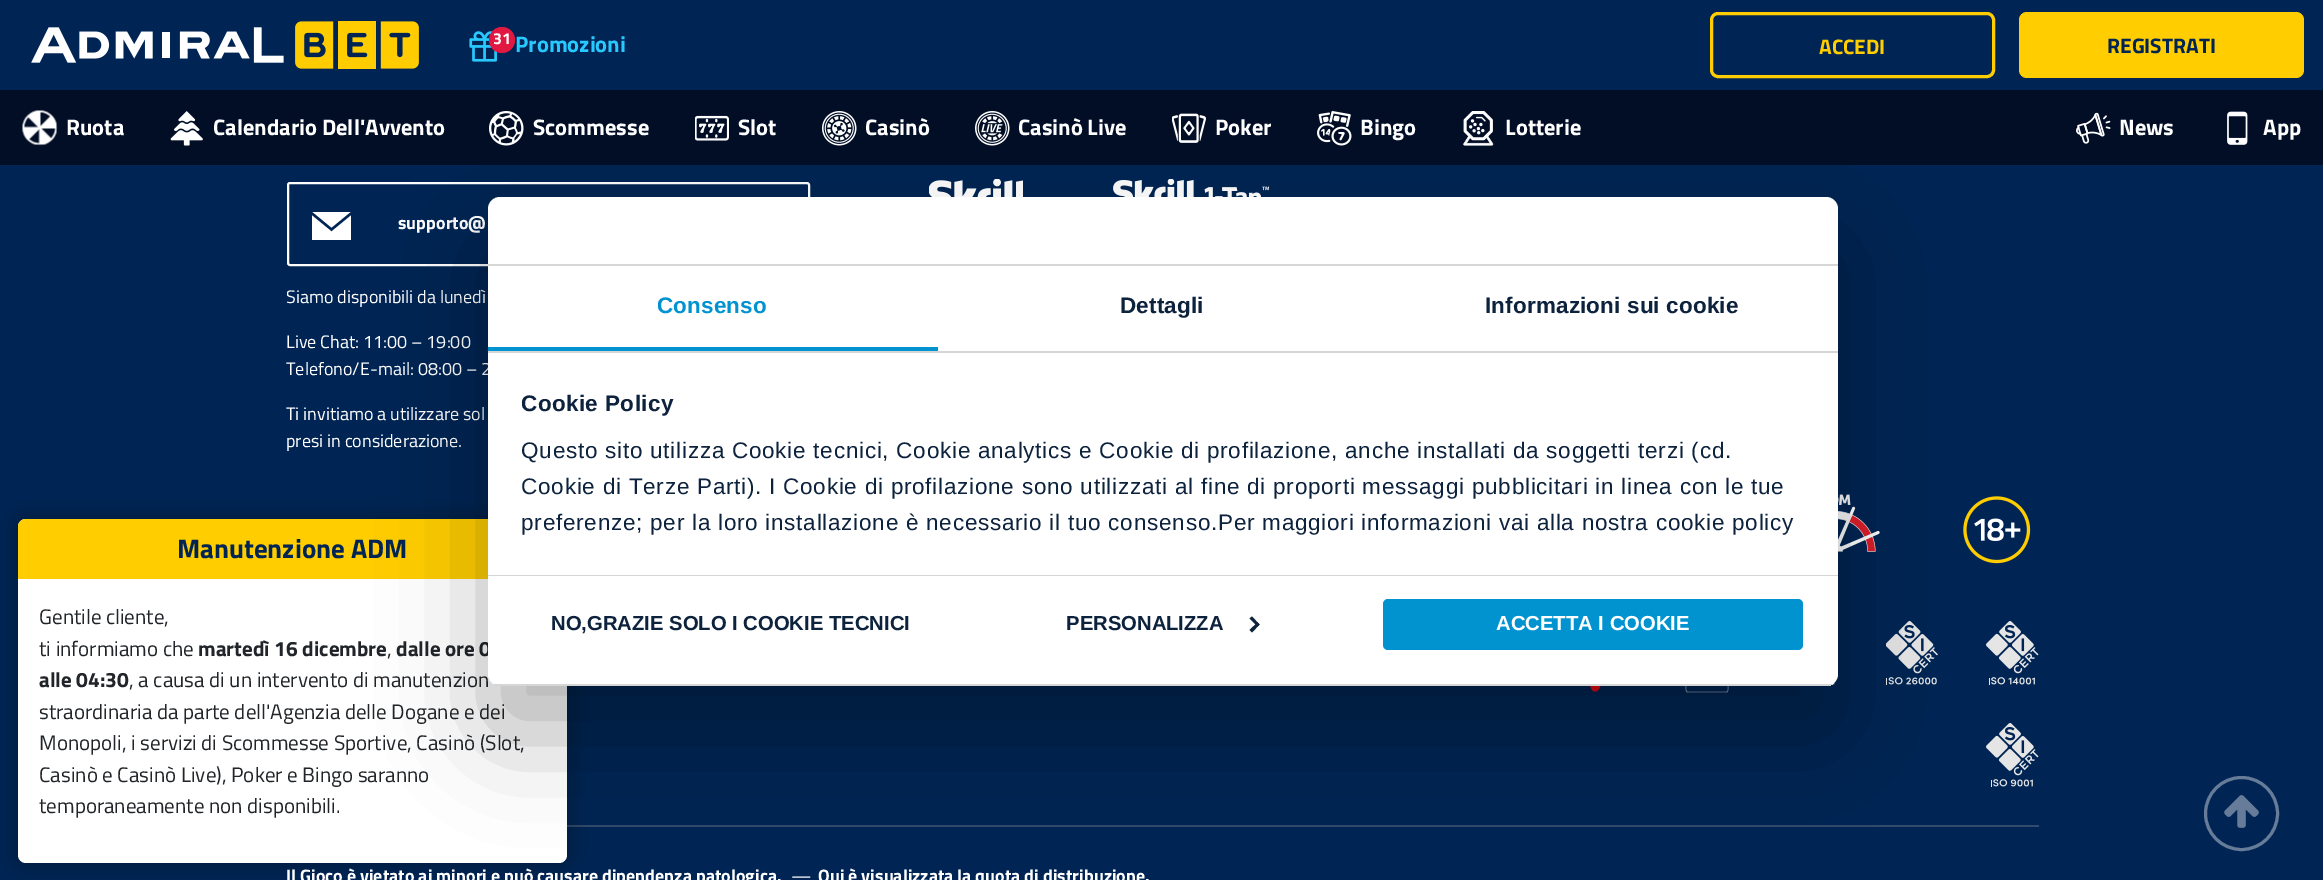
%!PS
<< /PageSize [2323 880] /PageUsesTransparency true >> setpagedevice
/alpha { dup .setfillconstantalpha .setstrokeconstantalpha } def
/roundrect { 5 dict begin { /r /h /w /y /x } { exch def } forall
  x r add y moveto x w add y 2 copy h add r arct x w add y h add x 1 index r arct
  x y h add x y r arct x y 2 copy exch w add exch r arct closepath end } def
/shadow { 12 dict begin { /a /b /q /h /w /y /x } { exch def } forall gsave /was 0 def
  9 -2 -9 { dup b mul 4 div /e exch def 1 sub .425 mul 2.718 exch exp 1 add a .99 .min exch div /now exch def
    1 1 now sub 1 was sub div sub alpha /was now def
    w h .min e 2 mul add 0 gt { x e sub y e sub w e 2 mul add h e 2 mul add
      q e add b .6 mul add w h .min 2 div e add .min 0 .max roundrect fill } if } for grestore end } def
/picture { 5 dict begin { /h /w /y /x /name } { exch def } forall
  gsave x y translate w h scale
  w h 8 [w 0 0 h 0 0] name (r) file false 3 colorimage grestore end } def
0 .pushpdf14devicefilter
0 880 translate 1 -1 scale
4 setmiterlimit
0 0.141 0.329 setrgbcolor
0 0 2323 880 rectfill
0.008 0.055 0.149 setrgbcolor
0 90 2323 75 rectfill
(img1.rgb) 31 21 388 48 picture
(img2.rgb) 469 31 28 31 picture
0.882 0.094 0.259 setrgbcolor
newpath 502 40 13 0 360 arc closepath fill
/TitilliumWeb-Bold [16 0 0 -16 0 0] selectfont
1 setgray
493 44 moveto (31) show
/TitilliumWeb-Bold [22.5 0 0 -22.5 0 0] selectfont
0.157 0.788 1 setrgbcolor
515 52 moveto (Promozioni) show
1 0.804 0 setrgbcolor
3 setlinewidth
1711.5 13.5 282 63 6.5 roundrect stroke
/TitilliumWeb-Bold [21 0 0 -21 0 0] selectfont
1819 54 moveto (ACCEDI) show
2019 12 285 66 8 roundrect fill
0 0.141 0.329 setrgbcolor
2107 53 moveto (REGISTRATI) show
(img3.rgb) 22 110 36 36 picture
/TitilliumWeb-Bold [22.5 0 0 -22.5 0 0] selectfont
1 setgray
66 135 moveto (Ruota) show
(img4.rgb) 170 111 33 35 picture
213 135 moveto (Calendario Dell'Avvento) show
(img5.rgb) 489 111 35 35 picture
533 135 moveto (Scommesse) show
(img6.rgb) 695 115 34 26 picture
738 135 moveto (Slot) show
(img7.rgb) 822 111 35 35 picture
865 135 moveto (Casinò) show
(img8.rgb) 975 111 35 35 picture
1018 135 moveto (Casinò Live) show
(img9.rgb) 1172 113 34 30 picture
1215 135 moveto (Poker) show
(img10.rgb) 1317 111 35 35 picture
1360 135 moveto (Bingo) show
(img11.rgb) 1463 111 31 35 picture
1505 135 moveto (Lotterie) show
(img12.rgb) 2076 112 35 32 picture
2119 135 moveto (News) show
(img13.rgb) 2227 111 21 34 picture
2263 135 moveto (App) show
0.196 0.29 0.42 setrgbcolor
567 825 1472 2 rectfill
0 setgray
12 513 561 356 14 7.5 0.2 shadow
1 setgray
18 519 549 344 8 roundrect fill
1 0.804 0 setrgbcolor
newpath 26 519 moveto 559 519 lineto 563.5 519 567 522.5 567 527 curveto 567 579 lineto 18 579 lineto 18 527 lineto 18 522.5 21.5 519 26 519 curveto closepath fill
/TitilliumWeb-Bold [27 0 0 -27 0 0] selectfont
0 0.141 0.329 setrgbcolor
177 558 moveto (Manutenzione ADM) show
/TitilliumWeb-Regular [21 0 0 -21 0 0] selectfont
0.129 0.145 0.161 setrgbcolor
39 624 moveto (Gentile cliente,) show
39 656 moveto (ti informiamo che) show
/TitilliumWeb-Bold [21 0 0 -21 0 0] selectfont
198 656 moveto (martedì 16 dicembre) show
/TitilliumWeb-Regular [21 0 0 -21 0 0] selectfont
387 656 moveto (,) show
/TitilliumWeb-Bold [21 0 0 -21 0 0] selectfont
396 656 moveto (dalle ore 0) show
39 687 moveto (alle 04:30) show
/TitilliumWeb-Regular [21 0 0 -21 0 0] selectfont
129 687 moveto (, a causa di un intervento di manutenzion) show
39 719 moveto (straordinaria da parte dell'Agenzia delle Dogane e dei) show
39 750 moveto (Monopoli, i servizi di Scommesse Sportive, Casinò \(Slot,) show
39 782 moveto (Casinò e Casinò Live\), Poker e Bingo saranno) show
39 813 moveto (temporaneamente non disponibili.) show
(img14.rgb) 929 179 94 18 picture
(img15.rgb) 1113 179 156 18 picture
1 setgray
2 setlinewidth
288 183 521 82 2 roundrect stroke
gsave
312 212 39 28 rectclip
newpath 312 211.5 moveto 331.5 227.5 lineto 351 211.5 lineto closepath 331.5 231.5 moveto 312 215.5 lineto 312 241 lineto 351 241 lineto 351 215.5 lineto closepath fill
grestore
/TitilliumWeb-Bold [18 0 0 -18 0 0] selectfont
398 229 moveto (supporto@) show
gsave
287 0 1752 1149 rectclip
/TitilliumWeb-Regular [18 0 0 -18 0 0] selectfont
286 303 moveto (Siamo disponibili da lunedì) show
grestore
/TitilliumWeb-Regular [18 0 0 -18 0 0] selectfont
286 348 moveto (Live Chat: 11:00 – 19:00) show
286 375 moveto (Telefono/E-mail: 08:00 – 2) show
286 420 moveto (Ti invitiamo a utilizzare sol) show
286 447 moveto (presi in considerazione.) show
(img16.rgb) 1838 494 42 58 picture
(img17.rgb) 1963 496 68 68 picture
(img18.rgb) 1833 681 2 4 picture
(img19.rgb) 1886 621 52 64 picture
(img20.rgb) 1986 621 53 64 picture
(img21.rgb) 1590 686 11 6 picture
(img22.rgb) 1685 686 44 7 picture
(img23.rgb) 1986 723 53 64 picture
/TitilliumWeb-Bold [18 0 0 -18 0 0] selectfont
286 882 moveto (Il Gioco è vietato ai minori e può causare dipendenza patologica.) show
/TitilliumWeb-Regular [18 0 0 -18 0 0] selectfont
791 882 moveto (—) show
/TitilliumWeb-Bold [18 0 0 -18 0 0] selectfont
818 882 moveto (Qui è visualizzata la quota di distribuzione.) show
0 setgray
488 245 1350 489 12 51 0.3 shadow
1 setgray
488 197 1350 489 12 roundrect fill
0.839 setgray
488 264 1350 2 rectfill
488 351 1350 2 rectfill
0.004 0.573 0.816 setrgbcolor
488 347 450 4 rectfill
/LiberationSans-Bold [22.5 0 0 -22.5 0 0] selectfont
657 313 moveto 0.15 0 (Consenso) ashow
0.051 0.133 0.235 setrgbcolor
1120 313 moveto 0.15 0 (Dettagli) ashow
1485 313 moveto 0.15 0 (Informazioni sui cookie) ashow
0.839 setgray
488 575 1350 1 rectfill
0.051 0.133 0.235 setrgbcolor
521 411 moveto 0.4 0 (Cookie Policy) ashow
/LiberationSans-Regular [22.5 0 0 -22.5 0 0] selectfont
521 458 moveto 0.75 0 (Questo sito utilizza Cookie tecnici, Cookie analytics e Cookie di profilazione, anche installati da soggetti terzi \(cd.) ashow
521 494 moveto 0.75 0 (Cookie di Terze Parti\). I Cookie di profilazione sono utilizzati al fine di proporti messaggi pubblicitari in linea con le tue) ashow
521 530 moveto 0.75 0 (preferenze; per la loro installazione è necessario il tuo consenso.Per maggiori informazioni vai alla nostra cookie policy) ashow
gsave
488 197 1350 489 12 roundrect clip newpath
0.839 setgray
488 684 1350 2 rectfill
grestore
/LiberationSans-Bold [20.25 0 0 -20.25 0 0] selectfont
551 630 moveto (NO,GRAZIE SOLO I COOKIE TECNICI) show
1066 630 moveto (PERSONALIZZA) show
newpath 1252 616.5 moveto 1259.5 624.5 lineto 1257.5 626.5 lineto 1249.5 618.5 lineto closepath fill
newpath 1257.5 622.5 moveto 1259.5 624.5 lineto 1252 632.5 lineto 1249.5 630 lineto closepath fill
0.004 0.573 0.816 setrgbcolor
1383 599 420 51 5 roundrect fill
1 setgray
1496 630 moveto (ACCETTA I COOKIE) show
0.4 0.486 0.596 setrgbcolor
3 setlinewidth
newpath 2241.5 813.5 36 0 360 arc closepath stroke
(img24.rgb) 2224 795 35 33 picture
.poppdf14devicefilter showpage
